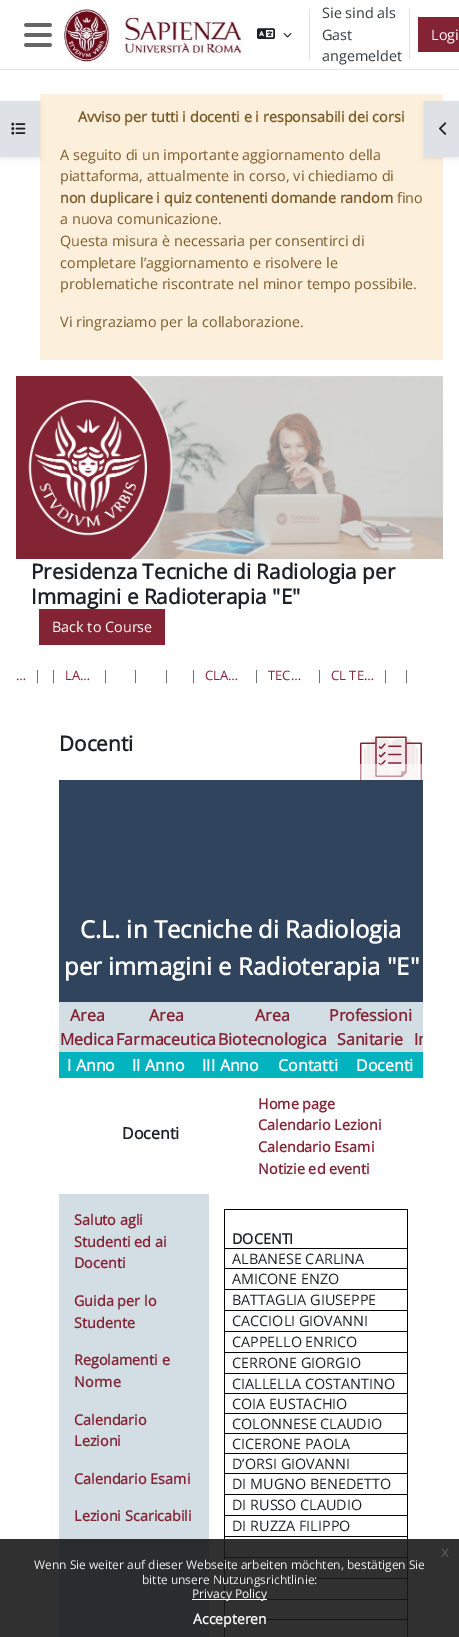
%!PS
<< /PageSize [459 1637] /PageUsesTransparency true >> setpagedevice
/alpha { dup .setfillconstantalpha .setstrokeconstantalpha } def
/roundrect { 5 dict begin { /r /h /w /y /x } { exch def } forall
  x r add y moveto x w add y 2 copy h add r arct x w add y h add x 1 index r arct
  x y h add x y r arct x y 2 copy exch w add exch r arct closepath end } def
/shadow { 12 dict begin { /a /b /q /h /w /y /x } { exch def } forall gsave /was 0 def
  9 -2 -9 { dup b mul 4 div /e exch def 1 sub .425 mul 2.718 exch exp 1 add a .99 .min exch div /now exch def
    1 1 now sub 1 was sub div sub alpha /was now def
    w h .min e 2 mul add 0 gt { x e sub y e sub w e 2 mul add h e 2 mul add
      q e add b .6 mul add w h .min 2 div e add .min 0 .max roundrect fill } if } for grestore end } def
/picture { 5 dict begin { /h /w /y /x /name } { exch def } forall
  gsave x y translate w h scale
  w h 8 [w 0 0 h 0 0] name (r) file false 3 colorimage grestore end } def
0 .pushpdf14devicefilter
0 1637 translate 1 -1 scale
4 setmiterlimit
1 setgray
0 0 459 1637 rectfill
0.871 0.886 0.902 setrgbcolor
0 69 459 1 rectfill
(img1.rgb) 24 23 28 24 picture
(img2.rgb) 60 5 184 58 picture
(img3.rgb) 257 28 18 11 picture
(img4.rgb) 283 33 9 5 picture
309 9 1 51 rectfill
/OpenSans-Regular [14.4 0 0 -14.4 0 0] selectfont
0.204 0.227 0.251 setrgbcolor
322 18 moveto (Sie sind als) show
0.871 0.886 0.902 setrgbcolor
409 9 1 51 rectfill
0.204 0.227 0.251 setrgbcolor
322 40 moveto (Gast) show
0.51 0.141 0.2 setrgbcolor
418 17 41 35 rectfill
1 setgray
431 40 moveto (Logi) show
0.204 0.227 0.251 setrgbcolor
322 61 moveto (angemeldet) show
0.988 0.937 0.863 setrgbcolor
40 94 403 266 rectfill
/OpenSans-Bold [14.4 0 0 -14.4 0 0] selectfont
0.49 0.353 0.161 setrgbcolor
78 122 moveto (Avviso per tutti i docenti e i responsabili dei corsi) show
/OpenSans-Regular [14.4 0 0 -14.4 0 0] selectfont
60 160 moveto (A seguito di un importante aggiornamento della) show
60 181 moveto (piattaforma, attualmente in corso, vi chiediamo di) show
/OpenSans-Bold [14.4 0 0 -14.4 0 0] selectfont
60 203 moveto (non duplicare i quiz contenenti domande random) show
/OpenSans-Regular [14.4 0 0 -14.4 0 0] selectfont
397 203 moveto (fino) show
60 224 moveto (a nuova comunicazione.) show
60 246 moveto (Questa misura è necessaria per consentirci di) show
60 268 moveto (completare l’aggiornamento e risolvere le) show
60 289 moveto (problematiche riscontrate nel minor tempo possibile.) show
60 327 moveto (Vi ringraziamo per la collaborazione.) show
(img5.rgb) 16 376 427 183 picture
/OpenSans-Bold [20.75 0 0 -20.75 0 0] selectfont
0.114 0.129 0.145 setrgbcolor
31 579 moveto (Presidenza Tecniche di Radiologia per) show
31 604 moveto (Immagini e Radioterapia "E") show
0.51 0.141 0.2 setrgbcolor
39 609 126 36 rectfill
/OpenSans-Regular [14.4 0 0 -14.4 0 0] selectfont
1 setgray
52 632 moveto (Back to Course) show
/OpenSans-Regular [13 0 0 -13 0 0] selectfont
0.51 0.141 0.2 setrgbcolor
16 680 moveto (…) show
0.416 0.451 0.482 setrgbcolor
34 680 moveto (|) show
50 680 moveto (|) show
0.51 0.141 0.2 setrgbcolor
65 680 moveto (LA…) show
0.416 0.451 0.482 setrgbcolor
102 680 moveto (|) show
132 680 moveto (|) show
163 680 moveto (|) show
190 680 moveto (|) show
0.51 0.141 0.2 setrgbcolor
205 680 moveto (CLA…) show
0.416 0.451 0.482 setrgbcolor
253 680 moveto (|) show
0.51 0.141 0.2 setrgbcolor
268 680 moveto (TEC…) show
0.416 0.451 0.482 setrgbcolor
316 680 moveto (|) show
0.51 0.141 0.2 setrgbcolor
331 680 moveto (CL TE…) show
0.416 0.451 0.482 setrgbcolor
382 680 moveto (|) show
403 680 moveto (|) show
0 setgray
0 103 40 56 0 2 0.07 shadow
0.871 0.886 0.902 setrgbcolor
0 101 40 56 rectfill
(img6.rgb) 11 122 15 13 picture
0 setgray
424 103 35 56 0 2 0.07 shadow
0.871 0.886 0.902 setrgbcolor
424 101 35 56 rectfill
(img7.rgb) 439 122 8 13 picture
(img8.rgb) 360 736 62 44 picture
/OpenSans-Bold [20.75 0 0 -20.75 0 0] selectfont
0.114 0.129 0.145 setrgbcolor
59 751 moveto (Docenti) show
0.5 alpha
1 setgray
360 764 62 16 rectfill
1 alpha
0.188 0.267 0.365 setrgbcolor
59 780 364 222 rectfill
/OpenSans-Bold [24 0 0 -24 0 0] selectfont
1 setgray
80 938 moveto (C.L. in Tecniche di Radiologia) show
64 975 moveto (per immagini e Radioterapia "E") show
0.827 0.871 0.894 setrgbcolor
59 1002 364 50 rectfill
/OpenSans-Bold [16 0 0 -16 0 0] selectfont
0.51 0.141 0.2 setrgbcolor
70 1021 moveto (Area) show
60 1045 moveto (Medica) show
149 1021 moveto (Area) show
116 1045 moveto (Farmaceutica) show
255 1021 moveto (Area) show
218 1045 moveto (Biotecnologica) show
329 1021 moveto (Professioni) show
337 1045 moveto (Sanitarie) show
gsave
59 780 364 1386 rectclip
414 1045 moveto (In) show
grestore
0 0.702 0.745 setrgbcolor
59 1052 364 26 rectfill
1 setgray
67 1071 moveto (I Anno) show
132 1071 moveto (II Anno) show
202 1071 moveto (III Anno) show
278 1071 moveto (Contatti) show
356 1071 moveto (Docenti) show
0.114 0.129 0.145 setrgbcolor
122 1139 moveto (Docenti) show
/OpenSans-Bold [14.4 0 0 -14.4 0 0] selectfont
0.51 0.141 0.2 setrgbcolor
258 1109 moveto (Home page) show
258 1130 moveto (Calendario Lezioni) show
258 1152 moveto (Calendario Esami) show
258 1174 moveto (Notizie ed eventi) show
0.827 0.871 0.894 setrgbcolor
59 1194 150 443 rectfill
0.51 0.141 0.2 setrgbcolor
74 1225 moveto (Saluto agli) show
74 1247 moveto (Studenti ed ai) show
74 1268 moveto (Docenti) show
74 1306 moveto (Guida per lo) show
74 1328 moveto (Studente) show
74 1365 moveto (Regolamenti e) show
74 1387 moveto (Norme) show
74 1425 moveto (Calendario) show
74 1446 moveto (Lezioni) show
74 1484 moveto (Calendario Esami) show
74 1521 moveto (Lezioni Scaricabili) show
0 setgray
224 1209 184 1 rectfill
407 1248 1 389 rectfill
407 1209 1 40 rectfill
224 1619 1 18 rectfill
224 1619 184 1 rectfill
224 1578 1 42 rectfill
224 1578 184 1 rectfill
224 1557 1 22 rectfill
224 1557 184 1 rectfill
224 1536 1 22 rectfill
224 1536 184 1 rectfill
224 1515 1 22 rectfill
224 1515 184 1 rectfill
224 1494 1 22 rectfill
224 1494 184 1 rectfill
224 1473 1 22 rectfill
224 1473 184 1 rectfill
224 1453 1 21 rectfill
224 1453 184 1 rectfill
224 1433 1 21 rectfill
224 1433 184 1 rectfill
224 1413 1 21 rectfill
224 1413 184 1 rectfill
224 1393 1 21 rectfill
224 1393 184 1 rectfill
224 1373 1 21 rectfill
224 1373 184 1 rectfill
224 1352 1 22 rectfill
224 1352 184 1 rectfill
224 1331 1 22 rectfill
224 1331 184 1 rectfill
224 1310 1 22 rectfill
224 1310 184 1 rectfill
224 1289 1 22 rectfill
224 1289 184 1 rectfill
224 1268 1 22 rectfill
224 1268 184 1 rectfill
224 1248 1 21 rectfill
224 1248 184 1 rectfill
224 1209 1 40 rectfill
0.114 0.129 0.145 setrgbcolor
232 1244 moveto (DOCENTI) show
/OpenSans-Regular [14.4 0 0 -14.4 0 0] selectfont
232 1264 moveto (ALBANESE CARLINA) show
232 1284 moveto (AMICONE ENZO) show
232 1305 moveto (BATTAGLIA GIUSEPPE) show
232 1326 moveto (CACCIOLI GIOVANNI) show
232 1347 moveto (CAPPELLO ENRICO) show
232 1368 moveto (CERRONE GIORGIO) show
232 1389 moveto (CIALLELLA COSTANTINO) show
232 1409 moveto (COIA EUSTACHIO) show
232 1429 moveto (COLONNESE CLAUDIO) show
232 1449 moveto (CICERONE PAOLA) show
232 1469 moveto (D’ORSI GIOVANNI) show
232 1489 moveto (DI MUGNO BENEDETTO) show
232 1510 moveto (DI RUSSO CLAUDIO) show
232 1531 moveto (DI RUZZA FILIPPO) show
0 setgray
267 1599 141 1 rectfill
0.9 alpha
0.098 setgray
0 1539 459 98 rectfill
/LiberationSans-Regular [16 0 0 -16 0 0] selectfont
1 alpha
0.349 setgray
441 1557 moveto (x) show
/OpenSans-Regular [12 0 0 -12 0 0] selectfont
0.937 setgray
34 1569 moveto (Wenn Sie weiter auf dieser Webseite arbeiten möchten, bestätigen Sie) show
142 1584 moveto (bitte unsere Nutzungsrichtlinie:) show
1 setgray
192 1599 75 1 rectfill
192 1598 moveto (Privacy Policy) show
/OpenSans-Bold [14 0 0 -14 0 0] selectfont
193 1624 moveto (Accepteren) show
.poppdf14devicefilter showpage
